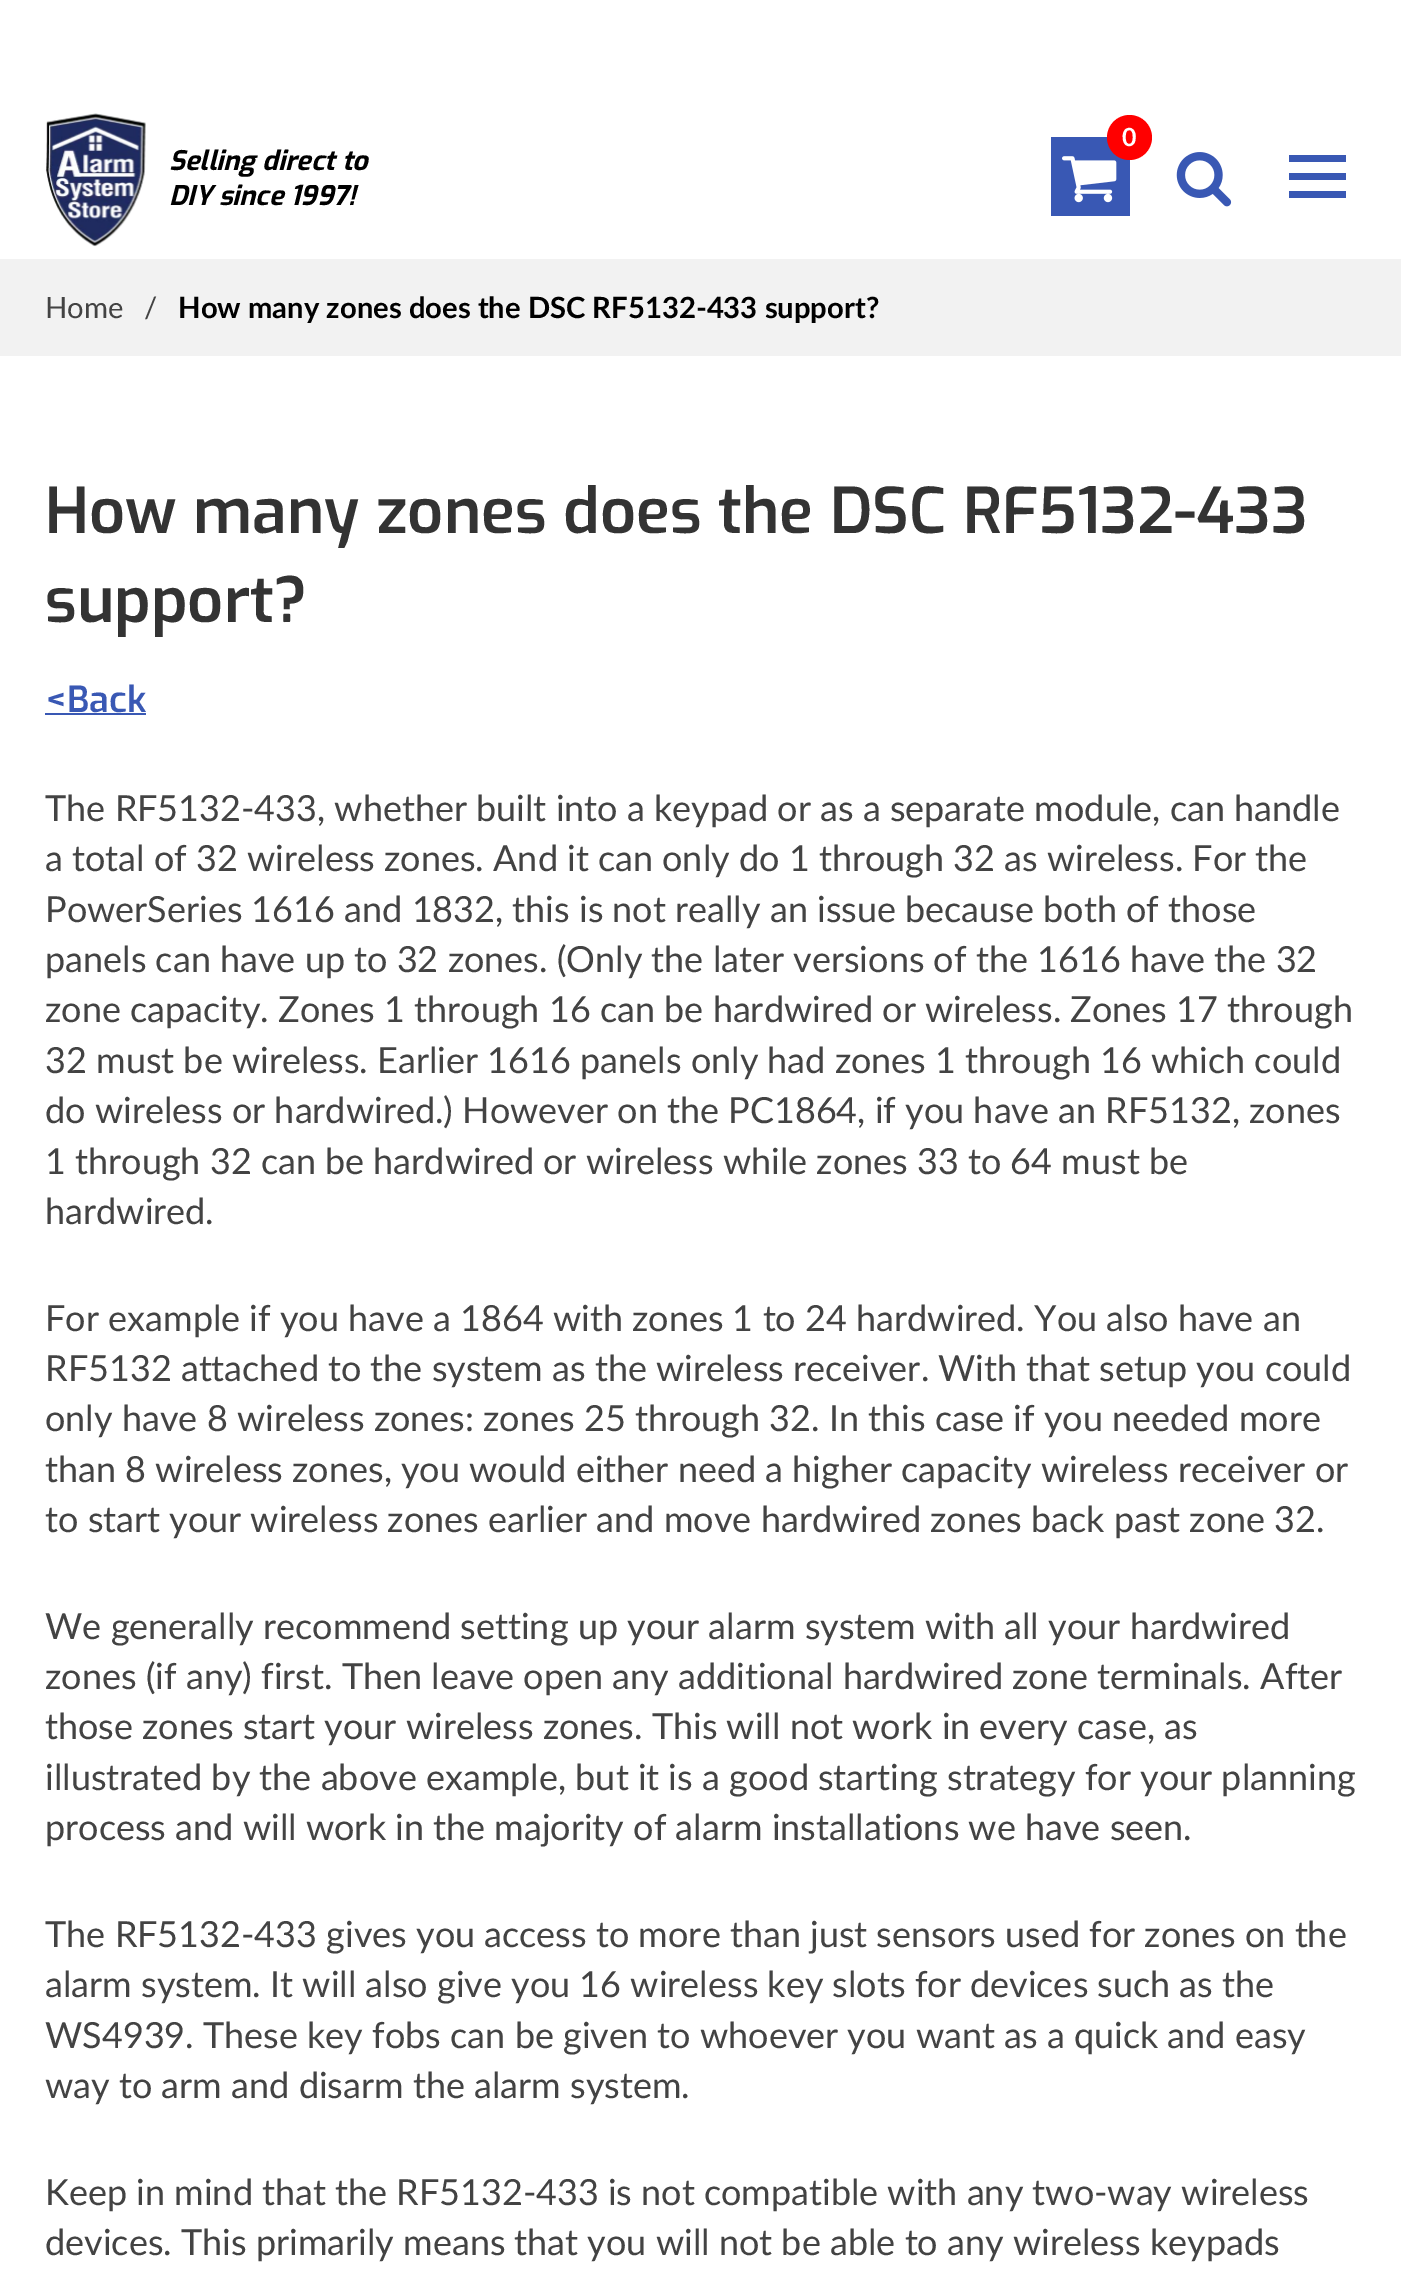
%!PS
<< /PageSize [1401 2275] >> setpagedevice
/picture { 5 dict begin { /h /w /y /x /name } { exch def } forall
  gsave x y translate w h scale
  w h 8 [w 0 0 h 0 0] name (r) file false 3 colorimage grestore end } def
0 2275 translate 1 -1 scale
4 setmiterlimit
1 setgray
0 0 1401 2275 rectfill
0.224 0.345 0.706 setrgbcolor
1051 137 79 79 rectfill
(img1.rgb) 1062 156 55 47 picture
1 0 0 setrgbcolor
newpath 1129.5 137.5 22.5 0 360 arc closepath fill
/Lato-Bold [25 0 0 -25 0 0] selectfont
1 setgray
1122 146 moveto (0) show
(img2.rgb) 1176 152 56 55 picture
0.224 0.345 0.706 setrgbcolor
1289 173 57 7 rectfill
1289 155 57 7 rectfill
1289 191 57 7 rectfill
(img3.rgb) 45 113 101 134 picture
/Exo-ThinItalic [27 0 0 -27 0 0] selectfont
0 setgray
169 170 moveto (Selling direct to) show
169 205 moveto (DIY since 1997!) show
0.949 setgray
0 259 1401 97 rectfill
/Lato-Regular [29.25 0 0 -29.25 0 0] selectfont
0.263 setgray
45 318 moveto (Home) show
144 318 moveto (/) show
/Lato-Bold [29.25 0 0 -29.25 0 0] selectfont
0 setgray
178 318 moveto (How many zones does the DSC RF5132-433 support?) show
/Exo-Thin [63 0 0 -63 0 0] selectfont
0.2 setgray
45 533 moveto (How many zones does the DSC RF5132-433) show
45 622 moveto (support?) show
/Exo-Thin [36 0 0 -36 0 0] selectfont
0.224 0.345 0.706 setrgbcolor
45 712 moveto (<Back) show
45 713 101 2 rectfill
/Lato-Regular [36 0 0 -36 0 0] selectfont
0.263 setgray
45 821 moveto (The RF5132-433, whether built into a keypad or as a separate module, can handle) show
45 871 moveto (a total of 32 wireless zones. And it can only do 1 through 32 as wireless. For the) show
45 922 moveto (PowerSeries 1616 and 1832, this is not really an issue because both of those) show
45 972 moveto (panels can have up to 32 zones. \(Only the later versions of the 1616 have the 32) show
45 1022 moveto (zone capacity. Zones 1 through 16 can be hardwired or wireless. Zones 17 through) show
45 1073 moveto (32 must be wireless. Earlier 1616 panels only had zones 1 through 16 which could) show
45 1123 moveto (do wireless or hardwired.\) However on the PC1864, if you have an RF5132, zones) show
45 1174 moveto (1 through 32 can be hardwired or wireless while zones 33 to 64 must be) show
45 1224 moveto (hardwired.) show
45 1331 moveto (For example if you have a 1864 with zones 1 to 24 hardwired. You also have an) show
45 1381 moveto (RF5132 attached to the system as the wireless receiver. With that setup you could) show
45 1431 moveto (only have 8 wireless zones: zones 25 through 32. In this case if you needed more) show
45 1482 moveto (than 8 wireless zones, you would either need a higher capacity wireless receiver or) show
45 1532 moveto (to start your wireless zones earlier and move hardwired zones back past zone 32.) show
45 1639 moveto (We generally recommend setting up your alarm system with all your hardwired) show
45 1689 moveto (zones \(if any\) first. Then leave open any additional hardwired zone terminals. After) show
45 1739 moveto (those zones start your wireless zones. This will not work in every case, as) show
45 1790 moveto (illustrated by the above example, but it is a good starting strategy for your planning) show
45 1840 moveto (process and will work in the majority of alarm installations we have seen.) show
45 1947 moveto (The RF5132-433 gives you access to more than just sensors used for zones on the) show
45 1997 moveto (alarm system. It will also give you 16 wireless key slots for devices such as the) show
45 2048 moveto (WS4939. These key fobs can be given to whoever you want as a quick and easy) show
45 2098 moveto (way to arm and disarm the alarm system.) show
45 2205 moveto (Keep in mind that the RF5132-433 is not compatible with any two-way wireless) show
45 2255 moveto (devices. This primarily means that you will not be able to any wireless keypads) show
showpage
